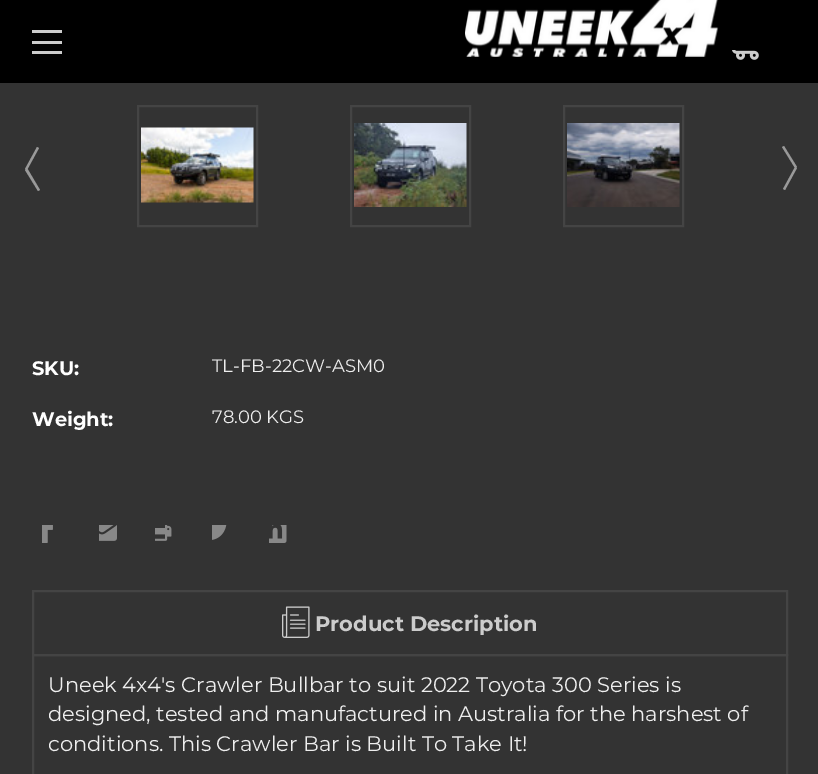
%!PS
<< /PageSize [818 774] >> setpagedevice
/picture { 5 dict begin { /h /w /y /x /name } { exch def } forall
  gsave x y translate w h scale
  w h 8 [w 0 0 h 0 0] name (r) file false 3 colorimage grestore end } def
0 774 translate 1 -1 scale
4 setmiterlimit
0.2 setgray
0 0 818 774 rectfill
0 setgray
0 0 818 83 rectfill
0.8 setgray
32 41 30 3 rectfill
32 30 30 3 rectfill
32 51 30 3 rectfill
(img1.rgb) 465 0 254 57 picture
(img2.rgb) 732 50 27 10 picture
0.6 setgray
newpath 37 147 moveto 39 148 lineto 27 170 lineto 25 169 lineto closepath 40 190 moveto 38 191 lineto 25 170 lineto 27 168 lineto closepath fill
0.267 setgray
2 setlinewidth
138 106 119 120 rectstroke
(img3.rgb) 141 127 113 76 picture
351 106 119 120 rectstroke
(img4.rgb) 354 123 113 84 picture
564 106 119 120 rectstroke
(img5.rgb) 567 123 113 84 picture
0.6 setgray
newpath 785 190 moveto 783 189 lineto 795 167 lineto 797 168 lineto closepath 782 147 moveto 784 146 lineto 797 167 lineto 795 168 lineto closepath fill
/Montserrat-Bold [19.5 0 0 -19.5 0 0] selectfont
1 setgray
32 375 moveto (SKU:) show
/Montserrat-Regular [18 0 0 -18 0 0] selectfont
0.933 setgray
212 372 moveto (TL-FB-22CW-ASM0) show
/Montserrat-Bold [19.5 0 0 -19.5 0 0] selectfont
1 setgray
32 426 moveto (Weight:) show
/Montserrat-Regular [18 0 0 -18 0 0] selectfont
0.933 setgray
212 423 moveto (78.00 KGS) show
(img6.rgb) 42 525 11 18 picture
(img7.rgb) 99 525 18 16 picture
(img8.rgb) 155 525 17 16 picture
(img9.rgb) 212 525 15 15 picture
(img10.rgb) 269 525 18 18 picture
0.267 setgray
33 655 754 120 rectstroke
33 591 754 64 rectstroke
(img11.rgb) 282 606 28 32 picture
/Montserrat-Bold [21 0 0 -21 0 0] selectfont
0.8 setgray
315 631 moveto (Product Description) show
/Montserrat-Regular [21 0 0 -21 0 0] selectfont
0.933 setgray
48 692 moveto (Uneek 4x4's Crawler Bullbar to suit 2022 Toyota 300 Series is) show
48 721 moveto (designed, tested and manufactured in Australia for the harshest of) show
48 751 moveto (conditions. This Crawler Bar is Built To Take It!) show
showpage
